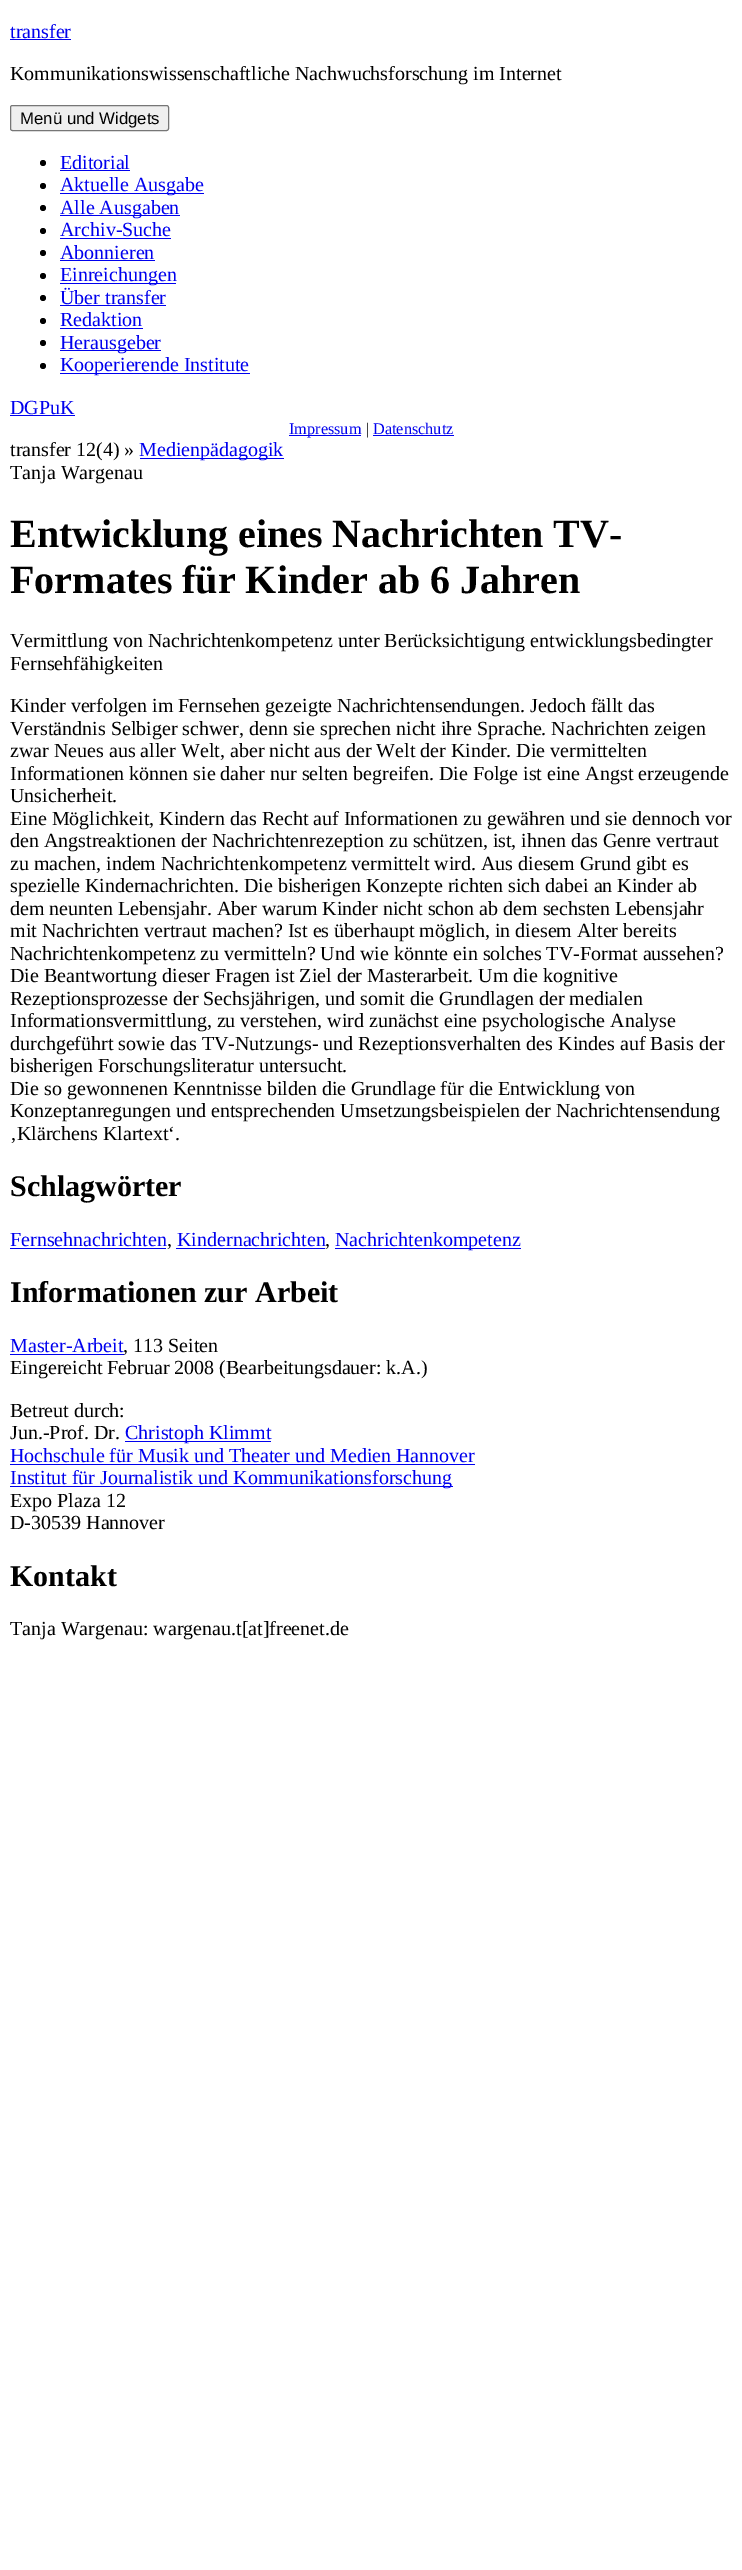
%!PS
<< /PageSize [742 2570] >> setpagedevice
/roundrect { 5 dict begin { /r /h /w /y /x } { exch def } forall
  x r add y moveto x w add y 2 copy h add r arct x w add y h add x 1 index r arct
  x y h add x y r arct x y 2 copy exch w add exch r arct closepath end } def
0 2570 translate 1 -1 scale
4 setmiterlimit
1 setgray
0 0 742 2570 rectfill
/LiberationSerif-Regular [20 0 0 -20 0 0] selectfont
0 0 0.933 setrgbcolor
10 38 moveto (transfer) show
10 39 61 1 rectfill
0 setgray
10 80 moveto (Kommunikationswissenschaftliche Nachwuchsforschung im Internet) show
0.937 setgray
10.5 105.5 158 25 2 roundrect gsave fill grestore
0.463 setgray
stroke
/LiberationSans-Regular [16.75 0 0 -16.75 0 0] selectfont
0 setgray
20 124 moveto (Menü und Widgets) show
newpath 43 163 3 0 360 arc closepath fill
/LiberationSerif-Regular [20 0 0 -20 0 0] selectfont
0 0 0.933 setrgbcolor
60 169 moveto (Editorial) show
60 170 70 1 rectfill
0 setgray
newpath 43 186 3 0 360 arc closepath fill
0 0 0.933 setrgbcolor
60 193 144 1 rectfill
60 191 moveto (Aktuelle Ausgabe) show
0 setgray
newpath 43 208 3 0 360 arc closepath fill
0 0 0.933 setrgbcolor
60 215 120 1 rectfill
60 214 moveto (Alle Ausgaben) show
0 setgray
newpath 43 231 3 0 360 arc closepath fill
0 0 0.933 setrgbcolor
60 236 moveto (Archiv-Suche) show
60 238 111 1 rectfill
0 setgray
newpath 43 253 3 0 360 arc closepath fill
0 0 0.933 setrgbcolor
60 259 moveto (Abonnieren) show
60 260 95 1 rectfill
0 setgray
newpath 43 276 3 0 360 arc closepath fill
0 0 0.933 setrgbcolor
60 283 116 1 rectfill
60 281 moveto (Einreichungen) show
0 setgray
newpath 43 298 3 0 360 arc closepath fill
0 0 0.933 setrgbcolor
60 304 moveto (Über transfer) show
60 305 106 1 rectfill
0 setgray
newpath 43 321 3 0 360 arc closepath fill
0 0 0.933 setrgbcolor
60 326 moveto (Redaktion) show
60 328 83 1 rectfill
0 setgray
newpath 43 343 3 0 360 arc closepath fill
0 0 0.933 setrgbcolor
60 350 101 1 rectfill
60 349 moveto (Herausgeber) show
0 setgray
newpath 43 366 3 0 360 arc closepath fill
0 0 0.933 setrgbcolor
60 373 190 1 rectfill
60 371 moveto (Kooperierende Institute) show
10 414 moveto (DGPuK) show
10 415 65 1 rectfill
289 435 72 1 rectfill
/LiberationSerif-Regular [16.25 0 0 -16.25 0 0] selectfont
289 434 moveto (Impressum) show
0 setgray
366 434 moveto (|) show
0 0 0.933 setrgbcolor
373 434 moveto (Datenschutz) show
373 435 81 1 rectfill
/LiberationSerif-Regular [20 0 0 -20 0 0] selectfont
0 setgray
10 456 moveto (transfer 12\(4\) ») show
0 0 0.933 setrgbcolor
140 458 144 1 rectfill
139 456 moveto (Medienpädagogik) show
0 setgray
10 479 moveto (Tanja Wargenau) show
/LiberationSerif-Bold [40 0 0 -40 0 0] selectfont
10 547 moveto (Entwicklung eines Nachrichten TV-) show
10 593 moveto (Formates für Kinder ab 6 Jahren) show
/LiberationSerif-Regular [20 0 0 -20 0 0] selectfont
10 647 moveto (Vermittlung von Nachrichtenkompetenz unter Berücksichtigung entwicklungsbedingter) show
10 670 moveto (Fernsehfähigkeiten) show
10 712 moveto (Kinder verfolgen im Fernsehen gezeigte Nachrichtensendungen. Jedoch fällt das) show
10 735 moveto (Verständnis Selbiger schwer, denn sie sprechen nicht ihre Sprache. Nachrichten zeigen) show
10 757 moveto (zwar Neues aus aller Welt, aber nicht aus der Welt der Kinder. Die vermittelten) show
10 780 moveto (Informationen können sie daher nur selten begreifen. Die Folge ist eine Angst erzeugende) show
10 802 moveto (Unsicherheit.) show
10 825 moveto (Eine Möglichkeit, Kindern das Recht auf Informationen zu gewähren und sie dennoch vor) show
10 847 moveto (den Angstreaktionen der Nachrichtenrezeption zu schützen, ist, ihnen das Genre vertraut) show
10 870 moveto (zu machen, indem Nachrichtenkompetenz vermittelt wird. Aus diesem Grund gibt es) show
10 892 moveto (spezielle Kindernachrichten. Die bisherigen Konzepte richten sich dabei an Kinder ab) show
10 915 moveto (dem neunten Lebensjahr. Aber warum Kinder nicht schon ab dem sechsten Lebensjahr) show
10 937 moveto (mit Nachrichten vertraut machen? Ist es überhaupt möglich, in diesem Alter bereits) show
10 960 moveto (Nachrichtenkompetenz zu vermitteln? Und wie könnte ein solches TV-Format aussehen?) show
10 982 moveto (Die Beantwortung dieser Fragen ist Ziel der Masterarbeit. Um die kognitive) show
10 1005 moveto (Rezeptionsprozesse der Sechsjährigen, und somit die Grundlagen der medialen) show
10 1027 moveto (Informationsvermittlung, zu verstehen, wird zunächst eine psychologische Analyse) show
10 1050 moveto (durchgeführt sowie das TV-Nutzungs- und Rezeptionsverhalten des Kindes auf Basis der) show
10 1072 moveto (bisherigen Forschungsliteratur untersucht.) show
10 1095 moveto (Die so gewonnenen Kenntnisse bilden die Grundlage für die Entwicklung von) show
10 1117 moveto (Konzeptanregungen und entsprechenden Umsetzungsbeispielen der Nachrichtensendung) show
10 1140 moveto (‚Klärchens Klartext‘.) show
/LiberationSerif-Bold [30 0 0 -30 0 0] selectfont
10 1196 moveto (Schlagwörter) show
/LiberationSerif-Regular [20 0 0 -20 0 0] selectfont
0 0 0.933 setrgbcolor
10 1246 moveto (Fernsehnachrichten) show
10 1248 156 1 rectfill
0 setgray
167 1246 moveto (,) show
0 0 0.933 setrgbcolor
177 1246 moveto (Kindernachrichten) show
176 1248 149 1 rectfill
0 setgray
325 1246 moveto (,) show
0 0 0.933 setrgbcolor
335 1248 186 1 rectfill
335 1246 moveto (Nachrichtenkompetenz) show
/LiberationSerif-Bold [30 0 0 -30 0 0] selectfont
0 setgray
10 1302 moveto (Informationen zur Arbeit) show
/LiberationSerif-Regular [20 0 0 -20 0 0] selectfont
0 0 0.933 setrgbcolor
10 1352 moveto (Master-Arbeit) show
10 1354 114 1 rectfill
0 setgray
123 1352 moveto (, 113 Seiten) show
10 1374 moveto (Eingereicht Februar 2008 \(Bearbeitungsdauer: k.A.\)) show
10 1417 moveto (Betreut durch:) show
10 1439 moveto (Jun.-Prof. Dr.) show
0 0 0.933 setrgbcolor
125 1441 146 1 rectfill
125 1439 moveto (Christoph Klimmt) show
10 1462 moveto (Hochschule für Musik und Theater und Medien Hannover) show
10 1464 465 1 rectfill
10 1486 443 1 rectfill
10 1484 moveto (Institut für Journalistik und Kommunikationsforschung) show
0 setgray
10 1507 moveto (Expo Plaza 12) show
10 1529 moveto (D-30539 Hannover) show
/LiberationSerif-Bold [30 0 0 -30 0 0] selectfont
10 1586 moveto (Kontakt) show
/LiberationSerif-Regular [20 0 0 -20 0 0] selectfont
10 1635 moveto (Tanja Wargenau: wargenau.t[at]freenet.de) show
showpage
